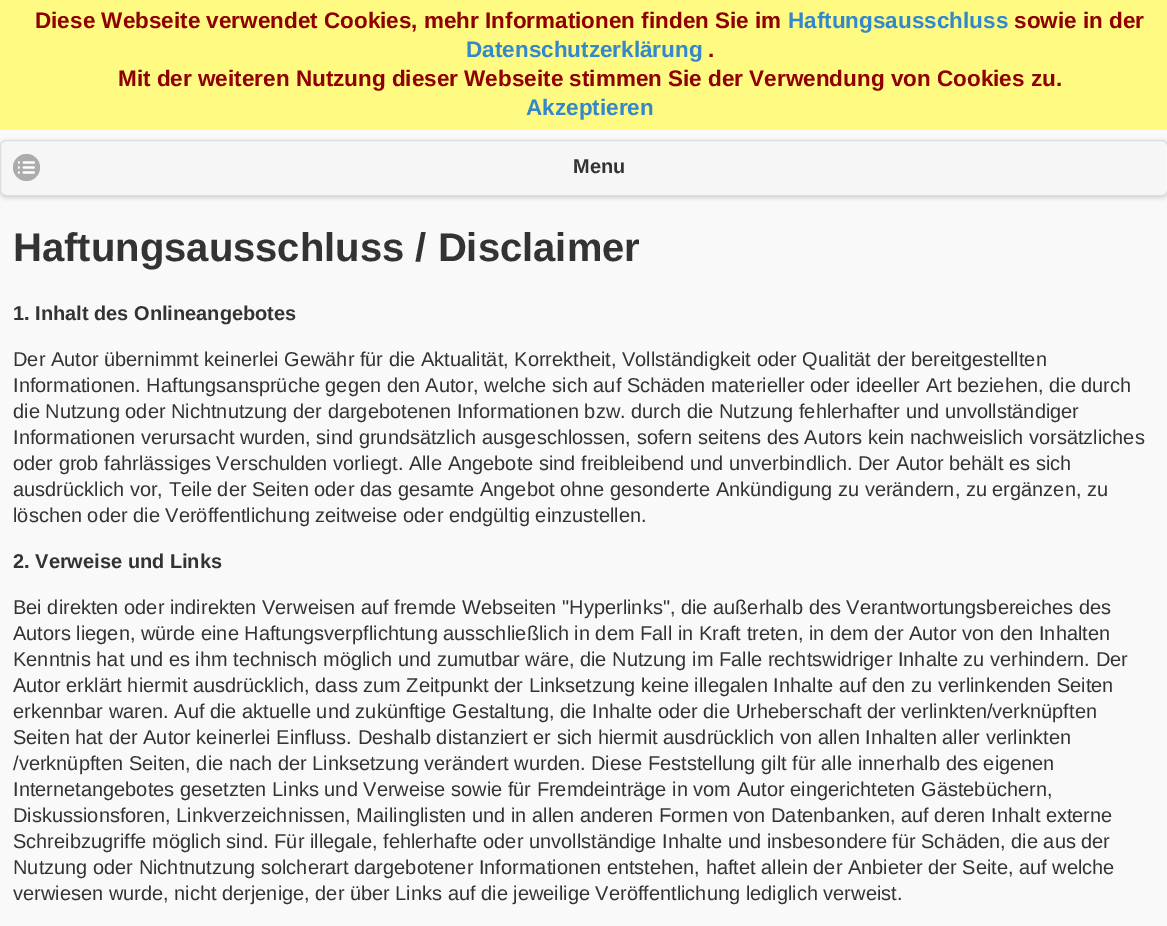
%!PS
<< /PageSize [1167 926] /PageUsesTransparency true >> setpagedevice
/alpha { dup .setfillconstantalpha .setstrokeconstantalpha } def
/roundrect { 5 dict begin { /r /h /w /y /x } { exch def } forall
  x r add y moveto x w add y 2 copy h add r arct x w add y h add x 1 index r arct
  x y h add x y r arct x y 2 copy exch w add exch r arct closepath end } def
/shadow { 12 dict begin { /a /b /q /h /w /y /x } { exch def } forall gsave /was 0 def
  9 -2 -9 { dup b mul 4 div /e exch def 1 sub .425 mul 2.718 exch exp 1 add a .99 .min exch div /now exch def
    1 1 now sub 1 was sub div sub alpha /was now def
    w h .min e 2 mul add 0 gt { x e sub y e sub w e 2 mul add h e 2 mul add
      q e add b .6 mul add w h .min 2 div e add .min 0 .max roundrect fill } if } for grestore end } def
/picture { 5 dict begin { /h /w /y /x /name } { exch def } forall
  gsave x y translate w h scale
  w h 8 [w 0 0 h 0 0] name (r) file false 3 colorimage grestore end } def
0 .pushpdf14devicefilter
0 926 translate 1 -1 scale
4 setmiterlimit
0.976 setgray
0 0 1167 926 rectfill
1 0.98 0.506 setrgbcolor
0 0 1167 130 rectfill
/LiberationSans-Bold [22.5 0 0 -22.5 0 0] selectfont
0.561 0 0 setrgbcolor
35 28 moveto (Diese Webseite verwendet Cookies, mehr Informationen finden Sie im) show
0.2 0.533 0.8 setrgbcolor
788 28 moveto (Haftungsausschluss) show
0.561 0 0 setrgbcolor
1014 28 moveto (sowie in der) show
0.2 0.533 0.8 setrgbcolor
466 57 moveto (Datenschutzerklärung) show
0.561 0 0 setrgbcolor
708 57 moveto (.) show
118 86 moveto (Mit der weiteren Nutzung dieser Webseite stimmen Sie der Verwendung von Cookies zu.) show
0.2 0.533 0.8 setrgbcolor
526 115 moveto (Akzeptieren) show
gsave
newpath 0 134 moveto 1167 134 lineto 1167 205 lineto 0 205 lineto closepath 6 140 moveto 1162 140 lineto 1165.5 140 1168 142.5 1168 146 curveto 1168 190 lineto 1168 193.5 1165.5 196 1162 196 curveto 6 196 lineto 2.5 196 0 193.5 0 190 curveto 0 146 lineto 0 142.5 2.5 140 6 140 curveto closepath eoclip newpath
0 setgray
0 141 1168 57 6 2 0.15 shadow
grestore
0.965 setgray
1 141 1165 54 5 roundrect fill
0.867 setgray
0.5 140.5 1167 55 5.5 roundrect stroke
0.675 setgray
newpath 26.5 167.5 13.5 0 360 arc closepath fill
(img1.rgb) 18 161 17 13 picture
/LiberationSans-Bold [20 0 0 -20 0 0] selectfont
0.2 setgray
573 173 moveto (Menu) show
/LiberationSans-Bold [40 0 0 -40 0 0] selectfont
13 261 moveto (Haftungsausschluss / Disclaimer) show
/LiberationSans-Bold [20 0 0 -20 0 0] selectfont
13 320 moveto (1. Inhalt des Onlineangebotes) show
/LiberationSans-Regular [20 0 0 -20 0 0] selectfont
13 366 moveto (Der Autor übernimmt keinerlei Gewähr für die Aktualität, Korrektheit, Vollständigkeit oder Qualität der bereitgestellten) show
13 392 moveto (Informationen. Haftungsansprüche gegen den Autor, welche sich auf Schäden materieller oder ideeller Art beziehen, die durch) show
13 418 moveto (die Nutzung oder Nichtnutzung der dargebotenen Informationen bzw. durch die Nutzung fehlerhafter und unvollständiger) show
13 444 moveto (Informationen verursacht wurden, sind grundsätzlich ausgeschlossen, sofern seitens des Autors kein nachweislich vorsätzliches) show
13 470 moveto (oder grob fahrlässiges Verschulden vorliegt. Alle Angebote sind freibleibend und unverbindlich. Der Autor behält es sich) show
13 496 moveto (ausdrücklich vor, Teile der Seiten oder das gesamte Angebot ohne gesonderte Ankündigung zu verändern, zu ergänzen, zu) show
13 522 moveto (löschen oder die Veröffentlichung zeitweise oder endgültig einzustellen.) show
/LiberationSans-Bold [20 0 0 -20 0 0] selectfont
13 568 moveto (2. Verweise und Links) show
/LiberationSans-Regular [20 0 0 -20 0 0] selectfont
13 614 moveto (Bei direkten oder indirekten Verweisen auf fremde Webseiten "Hyperlinks", die außerhalb des Verantwortungsbereiches des) show
13 640 moveto (Autors liegen, würde eine Haftungsverpflichtung ausschließlich in dem Fall in Kraft treten, in dem der Autor von den Inhalten) show
13 666 moveto (Kenntnis hat und es ihm technisch möglich und zumutbar wäre, die Nutzung im Falle rechtswidriger Inhalte zu verhindern. Der) show
13 692 moveto (Autor erklärt hiermit ausdrücklich, dass zum Zeitpunkt der Linksetzung keine illegalen Inhalte auf den zu verlinkenden Seiten) show
13 718 moveto (erkennbar waren. Auf die aktuelle und zukünftige Gestaltung, die Inhalte oder die Urheberschaft der verlinkten/verknüpften) show
13 744 moveto (Seiten hat der Autor keinerlei Einfluss. Deshalb distanziert er sich hiermit ausdrücklich von allen Inhalten aller verlinkten) show
13 770 moveto (/verknüpften Seiten, die nach der Linksetzung verändert wurden. Diese Feststellung gilt für alle innerhalb des eigenen) show
13 796 moveto (Internetangebotes gesetzten Links und Verweise sowie für Fremdeinträge in vom Autor eingerichteten Gästebüchern,) show
13 822 moveto (Diskussionsforen, Linkverzeichnissen, Mailinglisten und in allen anderen Formen von Datenbanken, auf deren Inhalt externe) show
13 848 moveto (Schreibzugriffe möglich sind. Für illegale, fehlerhafte oder unvollständige Inhalte und insbesondere für Schäden, die aus der) show
13 874 moveto (Nutzung oder Nichtnutzung solcherart dargebotener Informationen entstehen, haftet allein der Anbieter der Seite, auf welche) show
13 900 moveto (verwiesen wurde, nicht derjenige, der über Links auf die jeweilige Veröffentlichung lediglich verweist.) show
.poppdf14devicefilter showpage
